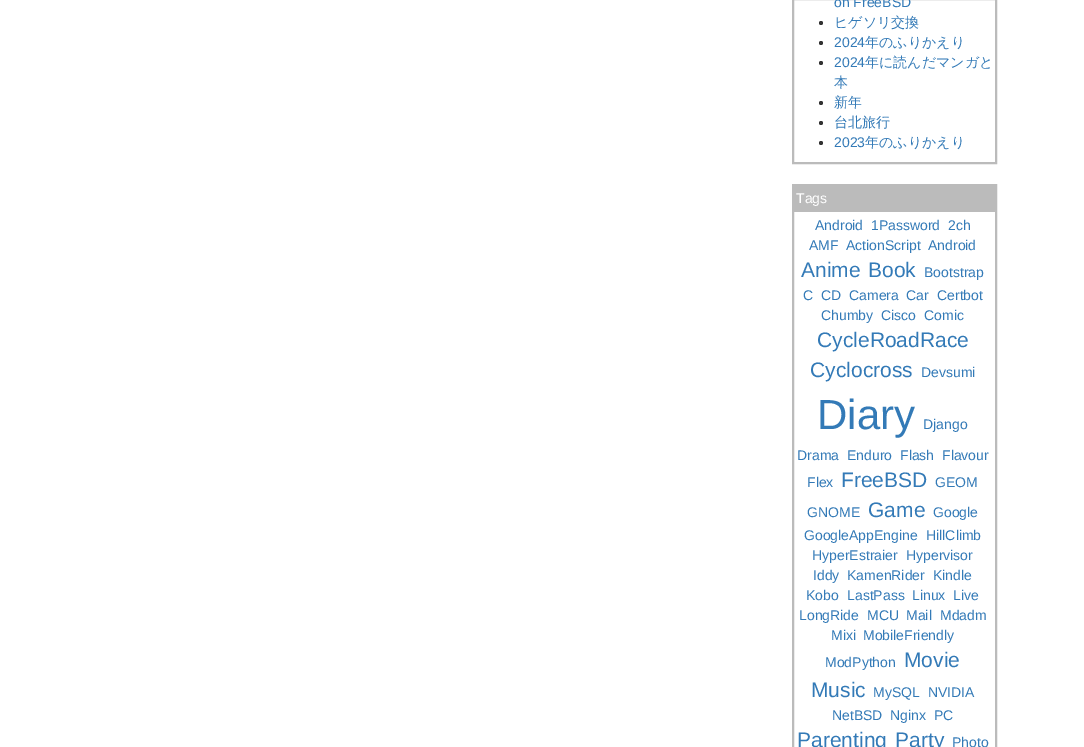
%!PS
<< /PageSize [1084 747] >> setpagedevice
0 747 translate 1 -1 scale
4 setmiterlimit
1 setgray
0 0 1084 747 rectfill
0.733 setgray
2 setlinewidth
793 -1 203 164 rectstroke
/LiberationSans-Regular [14 0 0 -14 0 0] selectfont
0.2 0.478 0.718 setrgbcolor
834 7 moveto (on FreeBSD) show
0.2 setgray
newpath 821 23 2 0 360 arc closepath fill
/WenQuanYiZenHei-Medium [14 0 0 -14 0 0] selectfont
0.2 0.478 0.718 setrgbcolor
834 27 moveto (ヒゲソリ交換) show
0.2 setgray
newpath 821 43 2 0 360 arc closepath fill
/LiberationSans-Regular [14 0 0 -14 0 0] selectfont
0.2 0.478 0.718 setrgbcolor
834 47 moveto (2024) show
/WenQuanYiZenHei-Medium [14 0 0 -14 0 0] selectfont
865 47 moveto (年のふりかえり) show
0.2 setgray
newpath 821 63 2 0 360 arc closepath fill
/LiberationSans-Regular [14 0 0 -14 0 0] selectfont
0.2 0.478 0.718 setrgbcolor
834 67 moveto (2024) show
/WenQuanYiZenHei-Medium [14 0 0 -14 0 0] selectfont
865 67 moveto (年に読んだマンガと) show
834 87 moveto (本) show
0.2 setgray
newpath 821 103 2 0 360 arc closepath fill
0.2 0.478 0.718 setrgbcolor
834 107 moveto (新年) show
0.2 setgray
newpath 821 123 2 0 360 arc closepath fill
0.2 0.478 0.718 setrgbcolor
834 127 moveto (台北旅行) show
0.2 setgray
newpath 821 143 2 0 360 arc closepath fill
/LiberationSans-Regular [14 0 0 -14 0 0] selectfont
0.2 0.478 0.718 setrgbcolor
834 147 moveto (2023) show
/WenQuanYiZenHei-Medium [14 0 0 -14 0 0] selectfont
865 147 moveto (年のふりかえり) show
0.733 setgray
793 185 203 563 rectstroke
794 186 201 26 rectfill
/LiberationSans-Regular [14 0 0 -14 0 0] selectfont
1 setgray
796 203 moveto (Tags) show
0.2 0.478 0.718 setrgbcolor
815 230 moveto (Android) show
871 230 moveto (1Password) show
948 230 moveto (2ch) show
809 250 moveto (AMF) show
846 250 moveto (ActionScript) show
928 250 moveto (Android) show
/LiberationSans-Regular [21 0 0 -21 0 0] selectfont
801 277 moveto (Anime) show
868 277 moveto (Book) show
/LiberationSans-Regular [14 0 0 -14 0 0] selectfont
924 277 moveto (Bootstrap) show
803 300 moveto (C) show
821 300 moveto (CD) show
849 300 moveto (Camera) show
906 300 moveto (Car) show
937 300 moveto (Certbot) show
821 320 moveto (Chumby) show
881 320 moveto (Cisco) show
924 320 moveto (Comic) show
/LiberationSans-Regular [21 0 0 -21 0 0] selectfont
817 347 moveto (CycleRoadRace) show
810 377 moveto (Cyclocross) show
/LiberationSans-Regular [14 0 0 -14 0 0] selectfont
921 377 moveto (Devsumi) show
/LiberationSans-Regular [42 0 0 -42 0 0] selectfont
817 429 moveto (Diary) show
/LiberationSans-Regular [14 0 0 -14 0 0] selectfont
923 429 moveto (Django) show
797 460 moveto (Drama) show
847 460 moveto (Enduro) show
900 460 moveto (Flash) show
942 460 moveto (Flavour) show
807 487 moveto (Flex) show
/LiberationSans-Regular [21 0 0 -21 0 0] selectfont
841 487 moveto (FreeBSD) show
/LiberationSans-Regular [14 0 0 -14 0 0] selectfont
935 487 moveto (GEOM) show
807 517 moveto (GNOME) show
/LiberationSans-Regular [21 0 0 -21 0 0] selectfont
868 517 moveto (Game) show
/LiberationSans-Regular [14 0 0 -14 0 0] selectfont
933 517 moveto (Google) show
804 540 moveto (GoogleAppEngine) show
926 540 moveto (HillClimb) show
812 560 moveto (HyperEstraier) show
906 560 moveto (Hypervisor) show
813 580 moveto (Iddy) show
847 580 moveto (KamenRider) show
933 580 moveto (Kindle) show
806 600 moveto (Kobo) show
847 600 moveto (LastPass) show
912 600 moveto (Linux) show
953 600 moveto (Live) show
799 620 moveto (LongRide) show
867 620 moveto (MCU) show
906 620 moveto (Mail) show
940 620 moveto (Mdadm) show
831 640 moveto (Mixi) show
863 640 moveto (MobileFriendly) show
825 667 moveto (ModPython) show
/LiberationSans-Regular [21 0 0 -21 0 0] selectfont
904 667 moveto (Movie) show
811 697 moveto (Music) show
/LiberationSans-Regular [14 0 0 -14 0 0] selectfont
873 697 moveto (MySQL) show
928 697 moveto (NVIDIA) show
832 720 moveto (NetBSD) show
890 720 moveto (Nginx) show
934 720 moveto (PC) show
/LiberationSans-Regular [21 0 0 -21 0 0] selectfont
797 747 moveto (Parenting) show
895 747 moveto (Party) show
/LiberationSans-Regular [14 0 0 -14 0 0] selectfont
952 747 moveto (Photo) show
showpage
